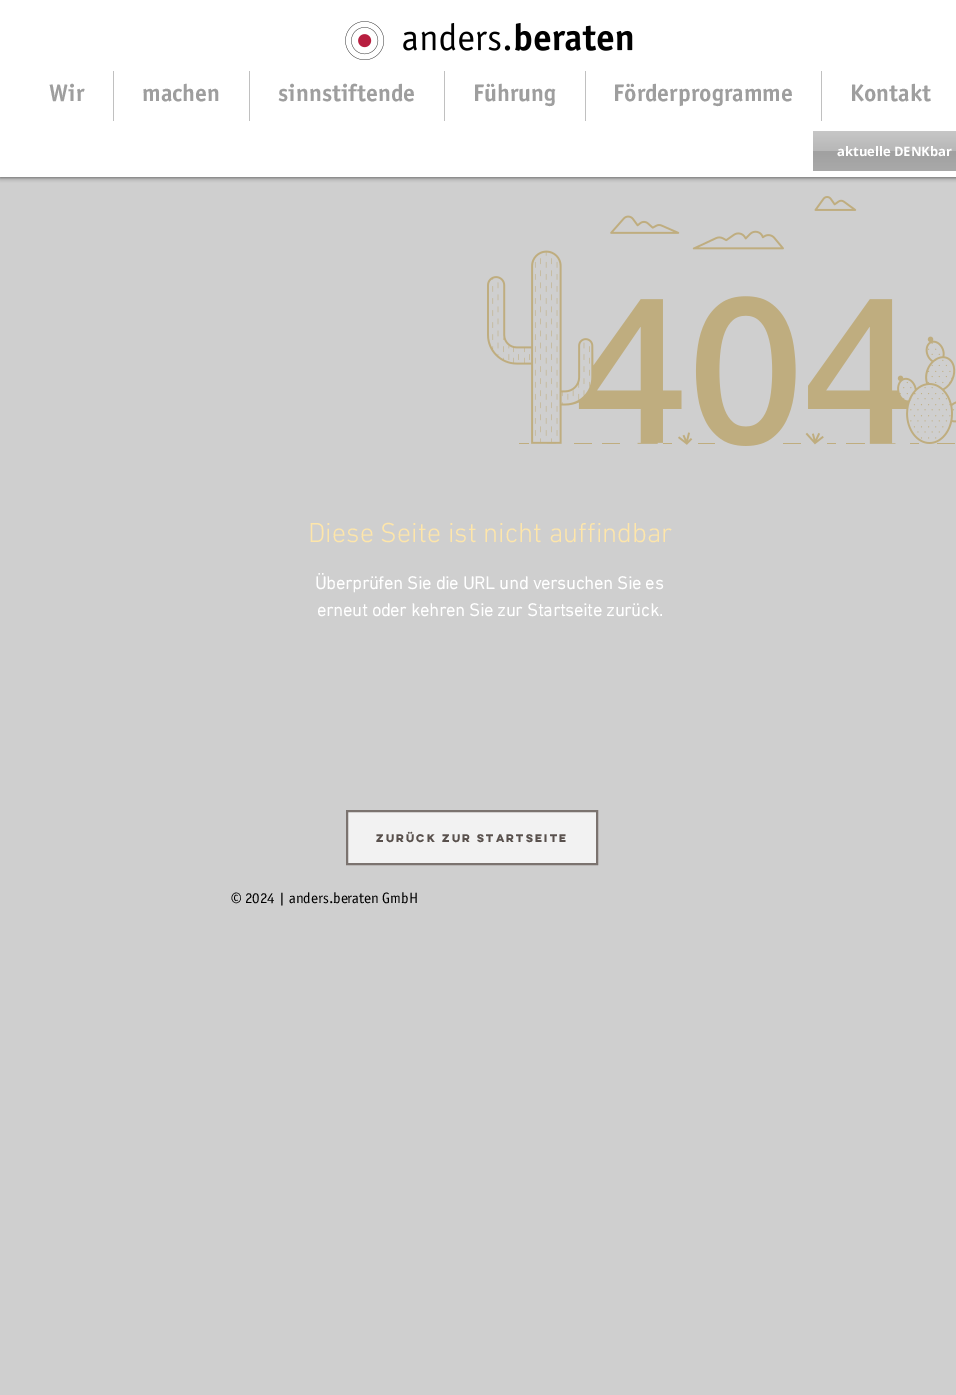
%!PS
<< /PageSize [956 1395] /PageUsesTransparency true >> setpagedevice
/alpha { dup .setfillconstantalpha .setstrokeconstantalpha } def
/roundrect { 5 dict begin { /r /h /w /y /x } { exch def } forall
  x r add y moveto x w add y 2 copy h add r arct x w add y h add x 1 index r arct
  x y h add x y r arct x y 2 copy exch w add exch r arct closepath end } def
/shadow { 12 dict begin { /a /b /q /h /w /y /x } { exch def } forall gsave /was 0 def
  9 -2 -9 { dup b mul 4 div /e exch def 1 sub .425 mul 2.718 exch exp 1 add a .99 .min exch div /now exch def
    1 1 now sub 1 was sub div sub alpha /was now def
    w h .min e 2 mul add 0 gt { x e sub y e sub w e 2 mul add h e 2 mul add
      q e add b .6 mul add w h .min 2 div e add .min 0 .max roundrect fill } if } for grestore end } def
/picture { 5 dict begin { /h /w /y /x /name } { exch def } forall
  gsave x y translate w h scale
  w h 8 [w 0 0 h 0 0] name (r) file false 3 colorimage grestore end } def
0 .pushpdf14devicefilter
0 1395 translate 1 -1 scale
4 setmiterlimit
0.812 setgray
0 0 956 1395 rectfill
0 setgray
0 0 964 177 0 2.5 0.7 shadow
1 setgray
0 0 956 177 rectfill
(img1.rgb) 345 21 288 39 picture
/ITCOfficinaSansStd-Bold [24 0 0 -24 0 0] selectfont
0.62 setgray
49 101 moveto (Wir) show
0.753 setgray
113 71 1 50 rectfill
0.62 setgray
142 101 moveto (machen) show
0.753 setgray
249 71 1 50 rectfill
0.62 setgray
278 101 moveto (sinnstiftende) show
0.753 setgray
444 71 1 50 rectfill
0.62 setgray
473 101 moveto (Führung) show
0.753 setgray
585 71 1 50 rectfill
0.62 setgray
613 101 moveto (Förderprogramme) show
0.753 setgray
821 71 1 50 rectfill
0.62 setgray
850 101 moveto (Kontakt) show
0.678 setgray
813 131 143 40 rectfill
(img2.rgb) 813 131 143 40 picture
/OpenSans-Bold [13 0 0 -13 0 0] selectfont
1 setgray
837 156 moveto (aktuelle DENKbar) show
(img3.rgb) 487 196 469 250 picture
/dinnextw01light-Light [28 0 0 -28 0 0] selectfont
0.996 0.902 0.667 setrgbcolor
308 542 moveto (Diese Seite ist nicht auffindbar) show
/dinnextw01light-Bold [18 0 0 -18 0 0] selectfont
1 setgray
315 589 moveto (Überprüfen Sie die URL und versuchen Sie es) show
317 616 moveto (erneut oder kehren Sie zur Startseite zurück.) show
0.949 setgray
newpath 347 811 moveto 597 811 lineto 597 864 lineto 347 864 lineto closepath gsave fill grestore
0.482 0.451 0.435 setrgbcolor
2 setlinewidth
stroke
/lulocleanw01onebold-Bold [10 0 0 -10 0 0] selectfont
0.349 0.318 0.302 setrgbcolor
376 842 moveto (Zurück zur Startseite) show
/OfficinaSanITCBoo-Regular [15 0 0 -15 0 0] selectfont
0 setgray
231 903 moveto (© 2024 | anders.beraten GmbH) show
.poppdf14devicefilter showpage
